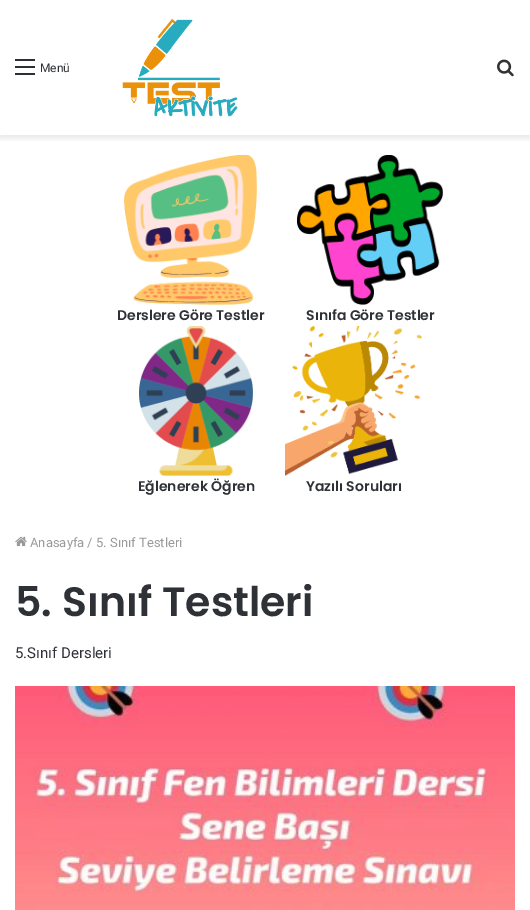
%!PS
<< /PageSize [530 910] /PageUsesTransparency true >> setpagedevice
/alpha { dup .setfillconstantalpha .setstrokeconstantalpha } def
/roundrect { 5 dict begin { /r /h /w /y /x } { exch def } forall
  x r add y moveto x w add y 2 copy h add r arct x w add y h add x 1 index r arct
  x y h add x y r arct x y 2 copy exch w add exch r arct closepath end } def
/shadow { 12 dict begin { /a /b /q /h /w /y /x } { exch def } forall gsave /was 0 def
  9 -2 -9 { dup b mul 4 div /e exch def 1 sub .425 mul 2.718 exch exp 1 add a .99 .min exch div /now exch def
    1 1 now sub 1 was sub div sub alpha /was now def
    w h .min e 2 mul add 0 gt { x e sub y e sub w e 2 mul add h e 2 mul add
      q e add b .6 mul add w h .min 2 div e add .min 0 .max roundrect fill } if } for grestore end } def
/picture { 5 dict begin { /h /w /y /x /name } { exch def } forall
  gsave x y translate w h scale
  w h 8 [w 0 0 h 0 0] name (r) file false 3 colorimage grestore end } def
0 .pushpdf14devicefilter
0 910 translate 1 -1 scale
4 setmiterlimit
1 setgray
0 0 530 910 rectfill
gsave
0 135 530 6 rectclip
0 setgray
0 3 530 135 0 3.5 0.1 shadow
grestore
0.173 0.184 0.204 setrgbcolor
15 66 20 2 rectfill
15 59 20 2 rectfill
15 73 20 2 rectfill
/Roboto-Regular [12 0 0 -12 0 0] selectfont
0.18 0.192 0.212 setrgbcolor
40 72 moveto (Menü) show
(img1.rgb) 122 18 116 99 picture
(img2.rgb) 497 59 17 18 picture
(img3.rgb) 124 155 133 150 picture
/Poppins-SemiBold [14 0 0 -14 0 0] selectfont
117 320 moveto (Derslere Göre Testler) show
(img4.rgb) 297 155 146 150 picture
306 320 moveto (Sınıfa Göre Testler) show
(img5.rgb) 139 326 114 150 picture
138 491 moveto (Eğlenerek Öğren) show
(img6.rgb) 285 326 137 150 picture
306 491 moveto (Yazılı Soruları) show
(img7.rgb) 15 536 12 11 picture
/Roboto-Regular [13 0 0 -13 0 0] selectfont
0.604 setgray
30 547 moveto (Anasayfa / 5. Sınıf Testleri) show
/Poppins-SemiBold [41 0 0 -41 0 0] selectfont
0.18 0.192 0.212 setrgbcolor
15 616 moveto (5. Sınıf Testleri) show
/Roboto-Regular [15 0 0 -15 0 0] selectfont
15 658 moveto (5.Sınıf Dersleri) show
(img8.rgb) 15 686 500 224 picture
.poppdf14devicefilter showpage
